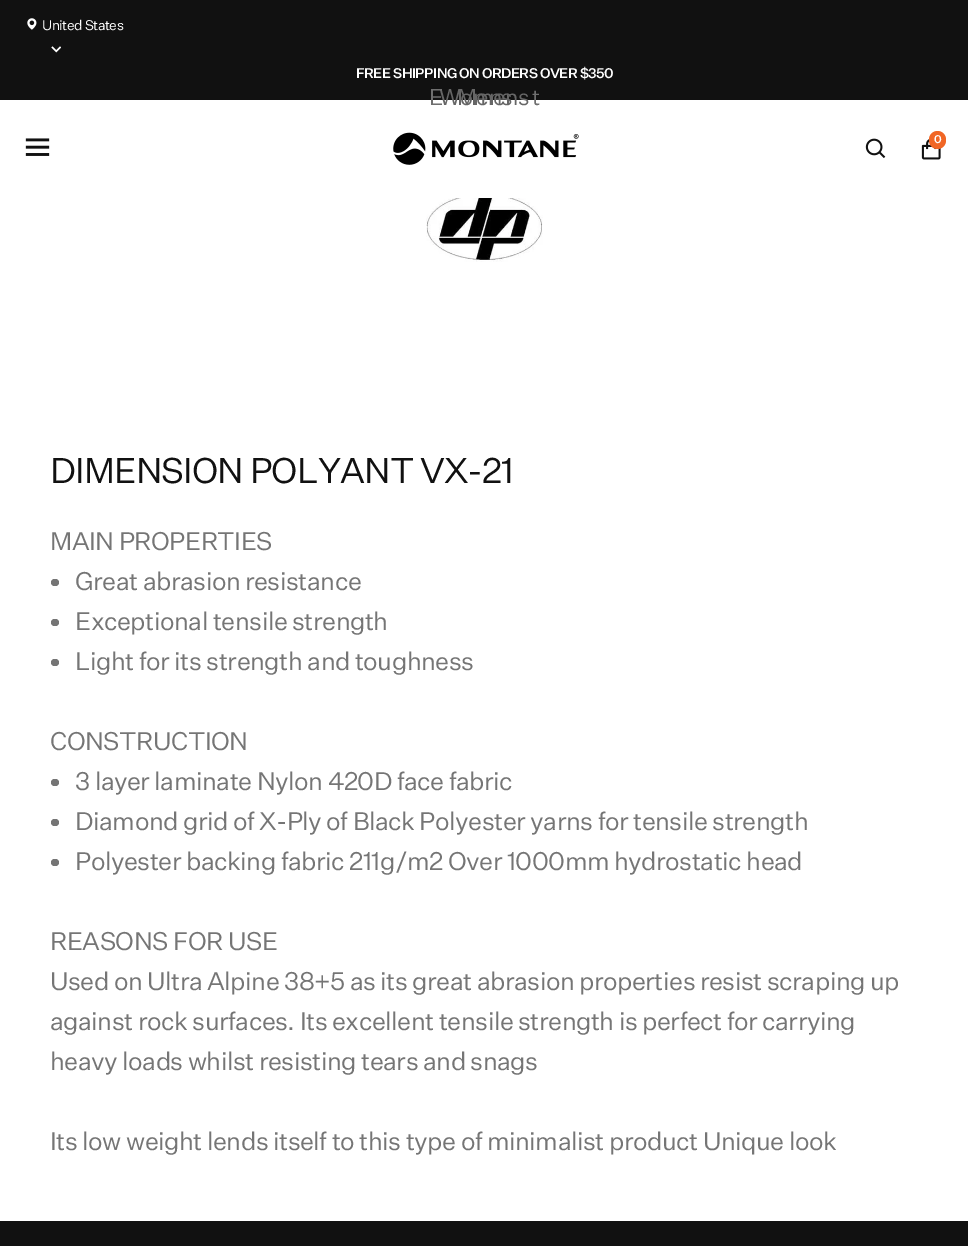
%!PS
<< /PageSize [968 1246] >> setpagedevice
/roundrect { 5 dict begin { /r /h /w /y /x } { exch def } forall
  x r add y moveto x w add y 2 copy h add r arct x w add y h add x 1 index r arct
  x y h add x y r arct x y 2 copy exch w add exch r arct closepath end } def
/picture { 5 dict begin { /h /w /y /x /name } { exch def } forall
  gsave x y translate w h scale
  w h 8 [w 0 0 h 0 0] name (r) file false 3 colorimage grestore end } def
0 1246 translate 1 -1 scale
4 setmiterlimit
1 setgray
0 0 968 1246 rectfill
0.067 setgray
0 0 968 100 rectfill
(img1.rgb) 27 18 10 12 picture
/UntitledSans-Regular [13.75 0 0 -13.75 0 0] selectfont
1 setgray
42 30 moveto -0.5 0 (United States) ashow
(img2.rgb) 51 46 10 7 picture
/UntitledSans-Medium [13.75 0 0 -13.75 0 0] selectfont
356 78 moveto -0.5 0 (FREE SHIPPING ON ORDERS OVER $350) ashow
/UntitledSans-Regular [22.5 0 0 -22.5 0 0] selectfont
0.4 setgray
457 105 moveto -0.5 0 (Mens) ashow
439 105 moveto -0.5 0 (Womens) ashow
0.435 setgray
429 105 moveto -0.5 0 (E) ashow
532 105 moveto -0.5 0 (t) ashow
(img3.rgb) 25 138 25 18 picture
(img4.rgb) 393 132 186 33 picture
(img5.rgb) 865 138 21 20 picture
(img6.rgb) 921 138 20 22 picture
0.945 0.4 0.145 setrgbcolor
929 131 17 18 8.5 roundrect fill
/UntitledSans-Medium [11 0 0 -11 0 0] selectfont
1 setgray
934 143 moveto -0.5 0 (0) ashow
(img7.rgb) 426 198 117 64 picture
/UntitledSans-Regular [35 0 0 -35 0 0] selectfont
0.067 setgray
50 483 moveto -0.9 0 (DIMENSION POLYANT VX-21) ashow
/UntitledSans-Regular [25 0 0 -25 0 0] selectfont
0.459 setgray
50 550 moveto -0.5 0 (MAIN PROPERTIES) ashow
51 579 8 7 3.5 roundrect fill
75 590 moveto -0.5 0 (Great abrasion resistance) ashow
51 619 8 7 3.5 roundrect fill
75 630 moveto -0.5 0 (Exceptional tensile strength) ashow
51 659 8 7 3.5 roundrect fill
75 670 moveto -0.5 0 (Light for its strength and toughness) ashow
50 750 moveto -0.5 0 (CONSTRUCTION) ashow
51 779 8 7 3.5 roundrect fill
75 790 moveto -0.5 0 (3 layer laminate Nylon 420D face fabric) ashow
51 819 8 7 3.5 roundrect fill
75 830 moveto -0.5 0 (Diamond grid of X-Ply of Black Polyester yarns for tensile strength) ashow
51 859 8 7 3.5 roundrect fill
75 870 moveto -0.5 0 (Polyester backing fabric 211g/m2 Over 1000mm hydrostatic head) ashow
50 950 moveto -0.5 0 (REASONS FOR USE) ashow
50 990 moveto -0.5 0 (Used on Ultra Alpine 38+5 as its great abrasion properties resist scraping up) ashow
50 1030 moveto -0.5 0 (against rock surfaces. Its excellent tensile strength is perfect for carrying) ashow
50 1070 moveto -0.5 0 (heavy loads whilst resisting tears and snags) ashow
50 1150 moveto -0.5 0 (Its low weight lends itself to this type of minimalist product Unique look) ashow
0.067 setgray
0 1221 968 25 rectfill
showpage
